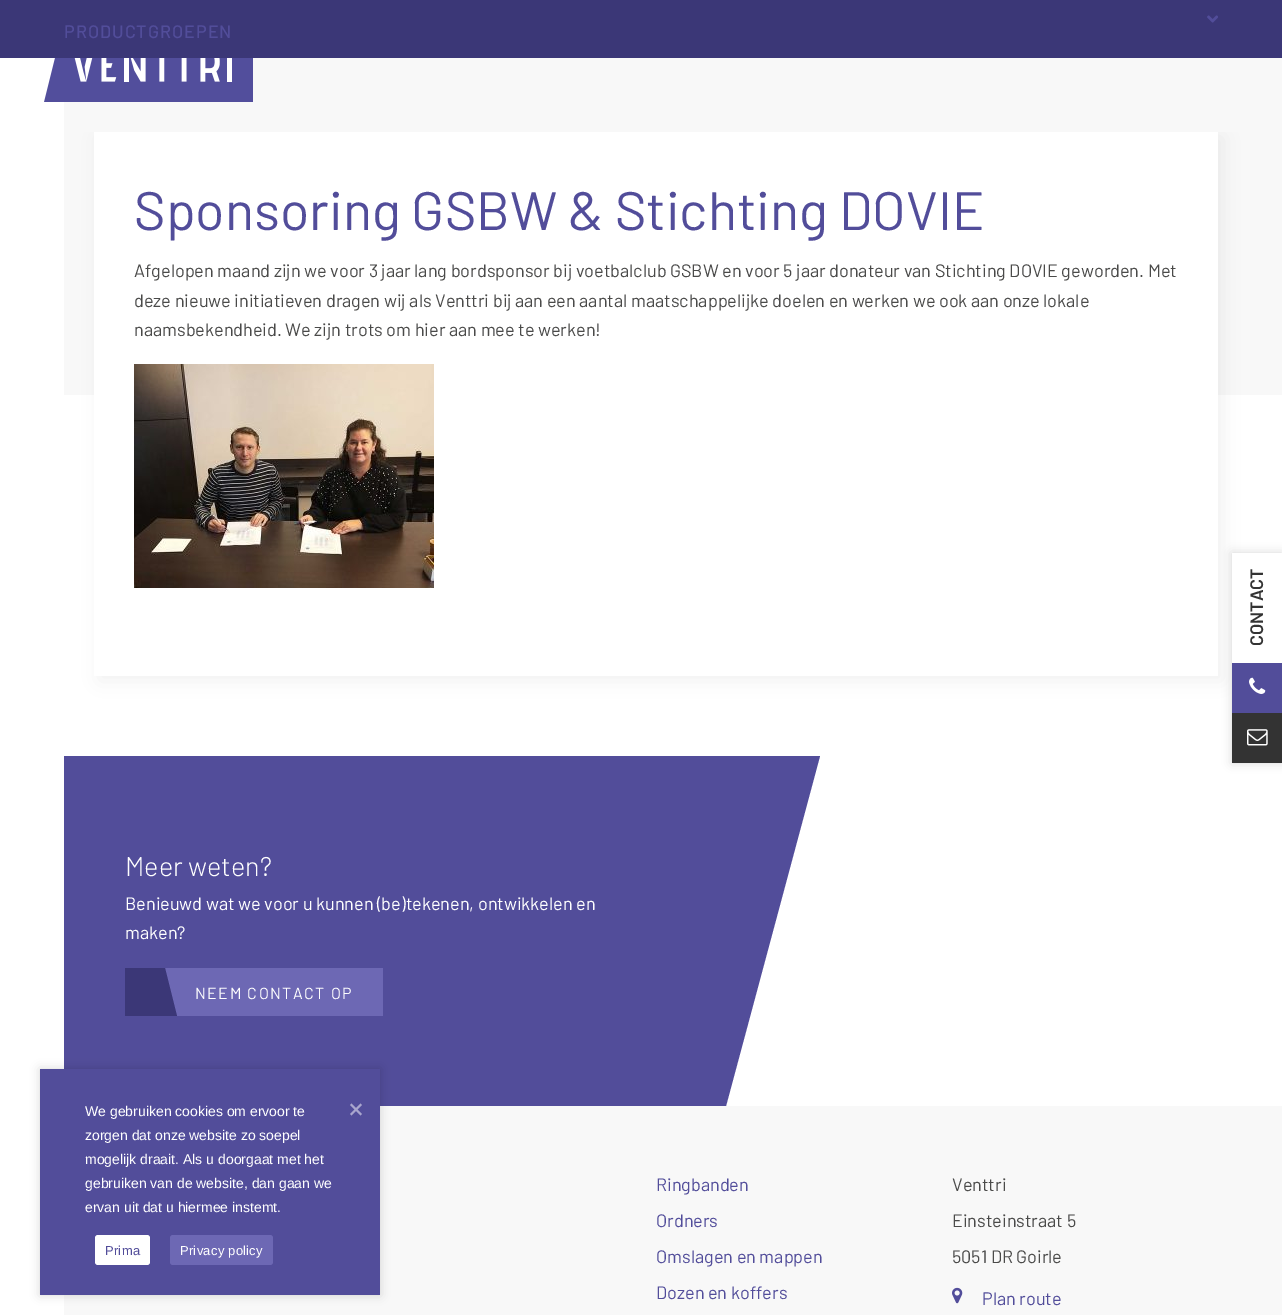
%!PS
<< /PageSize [1282 1315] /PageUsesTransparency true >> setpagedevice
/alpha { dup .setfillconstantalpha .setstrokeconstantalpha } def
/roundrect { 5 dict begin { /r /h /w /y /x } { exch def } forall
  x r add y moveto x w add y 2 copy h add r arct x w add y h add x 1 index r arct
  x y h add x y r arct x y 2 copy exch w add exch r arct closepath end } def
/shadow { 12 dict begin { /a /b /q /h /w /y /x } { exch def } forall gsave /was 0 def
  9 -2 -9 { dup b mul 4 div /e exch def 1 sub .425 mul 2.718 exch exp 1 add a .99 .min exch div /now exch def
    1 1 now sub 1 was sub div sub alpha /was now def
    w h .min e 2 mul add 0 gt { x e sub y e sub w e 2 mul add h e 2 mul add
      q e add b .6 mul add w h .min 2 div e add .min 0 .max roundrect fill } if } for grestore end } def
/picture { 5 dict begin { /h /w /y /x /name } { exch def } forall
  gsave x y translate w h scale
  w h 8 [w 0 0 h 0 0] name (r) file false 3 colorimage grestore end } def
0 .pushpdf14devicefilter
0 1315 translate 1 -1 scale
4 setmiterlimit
1 setgray
0 0 1282 1315 rectfill
0.973 setgray
64 132 1218 263 rectfill
0 setgray
99 137 1124 544 0 10 0.05 shadow
0.973 setgray
64 58 1218 74 rectfill
0.231 0.216 0.467 setrgbcolor
0 0 1282 58 rectfill
(img1.rgb) 1207 15 11 8 picture
/Barlow-Medium [18 0 0 -18 0 0] selectfont
0.322 0.302 0.604 setrgbcolor
64 38 moveto 1 0 (PRODUCTGROEPEN) ashow
(img2.rgb) 44 58 209 44 picture
1 setgray
94 132 1124 544 rectfill
/Barlow-Regular [54 0 0 -54 0 0] selectfont
0.322 0.302 0.604 setrgbcolor
134 230 moveto (Sponsoring GSBW & Stichting DOVIE) show
/Barlow-Regular [18 0 0 -18 0 0] selectfont
0.29 0.29 0.286 setrgbcolor
134 277 moveto (Afgelopen maand zijn we voor 3 jaar lang bordsponsor bij voetbalclub GSBW en voor 5 jaar donateur van Stichting DOVIE geworden. Met) show
134 307 moveto (deze nieuwe initiatieven dragen wij als Venttri bij aan een aantal maatschappelijke doelen en werken we ook aan onze lokale) show
134 336 moveto (naamsbekendheid. We zijn trots om hier aan mee te werken!) show
(img3.rgb) 134 364 300 224 picture
0.322 0.302 0.604 setrgbcolor
64 756 556 350 rectfill
/Barlow-Light [27 0 0 -27 0 0] selectfont
1 setgray
125 876 moveto (Meer weten?) show
0.322 0.302 0.604 setrgbcolor
newpath 620 756 moveto 820 756 lineto 726 1106 lineto 526 1106 lineto closepath fill
/Barlow-Regular [18 0 0 -18 0 0] selectfont
1 setgray
125 910 moveto (Benieuwd wat we voor u kunnen \(be\)tekenen, ontwikkelen en) show
125 939 moveto (maken?) show
0.427 0.408 0.706 setrgbcolor
165 968 218 48 rectfill
0.231 0.216 0.467 setrgbcolor
newpath 145 968 moveto 165 968 lineto 177 1016 lineto 157 1016 lineto closepath fill
125 968 32 48 rectfill
/Barlow-Regular [16 0 0 -16 0 0] selectfont
1 setgray
195 999 moveto 1.5 0 (NEEM CONTACT OP) ashow
0.973 setgray
64 1106 1218 209 rectfill
/Barlow-Regular [18 0 0 -18 0 0] selectfont
0.322 0.302 0.604 setrgbcolor
656 1191 moveto (Ringbanden) show
656 1227 moveto (Ordners) show
656 1263 moveto (Omslagen en mappen) show
656 1299 moveto (Dozen en koffers) show
0.29 0.29 0.286 setrgbcolor
952 1191 moveto (Venttri) show
952 1227 moveto (Einsteinstraat 5) show
952 1263 moveto (5051 DR Goirle) show
(img4.rgb) 952 1287 11 17 picture
0.322 0.302 0.604 setrgbcolor
982 1305 moveto (Plan route) show
0 setgray
1232 553 50 210 0 5 0.15 shadow
1 setgray
1232 553 50 110 rectfill
/Barlow-SemiBold [18 0 0 -18 0 0] selectfont
0.2 setgray
gsave 1263 646 translate -90 rotate 0 0 moveto (CONTACT) show grestore
0.322 0.302 0.604 setrgbcolor
1232 663 50 50 rectfill
(img5.rgb) 1249 677 17 17 picture
0.2 setgray
1232 713 50 50 rectfill
(img6.rgb) 1247 729 21 17 picture
0 setgray
40 1069 340 226 0 5 0.15 shadow
0.322 0.302 0.604 setrgbcolor
40 1069 340 226 rectfill
/LiberationSans-Regular [14 0 0 -14 0 0] selectfont
1 setgray
85 1116 moveto (We gebruiken cookies om ervoor te) show
85 1140 moveto (zorgen dat onze website zo soepel) show
85 1164 moveto (mogelijk draait. Als u doorgaat met het) show
85 1188 moveto (gebruiken van de website, dan gaan we) show
85 1212 moveto (ervan uit dat u hiermee instemt.) show
0.663 0.651 0.804 setrgbcolor
newpath 360.5 1103.5 moveto 362 1105 lineto 351.5 1115.5 lineto 350 1114 lineto closepath fill
newpath 350 1105 moveto 351.5 1103.5 lineto 362 1114 lineto 360.5 1115.5 lineto closepath fill
1 setgray
95 1235 55 30 3 roundrect fill
/LiberationSans-Regular [13 0 0 -13 0 0] selectfont
0.322 0.302 0.604 setrgbcolor
105 1255 moveto 0.25 0 (Prima) ashow
0.427 0.408 0.706 setrgbcolor
170 1235 103 30 3 roundrect fill
1 setgray
180 1255 moveto 0.25 0 (Privacy policy) ashow
.poppdf14devicefilter showpage
